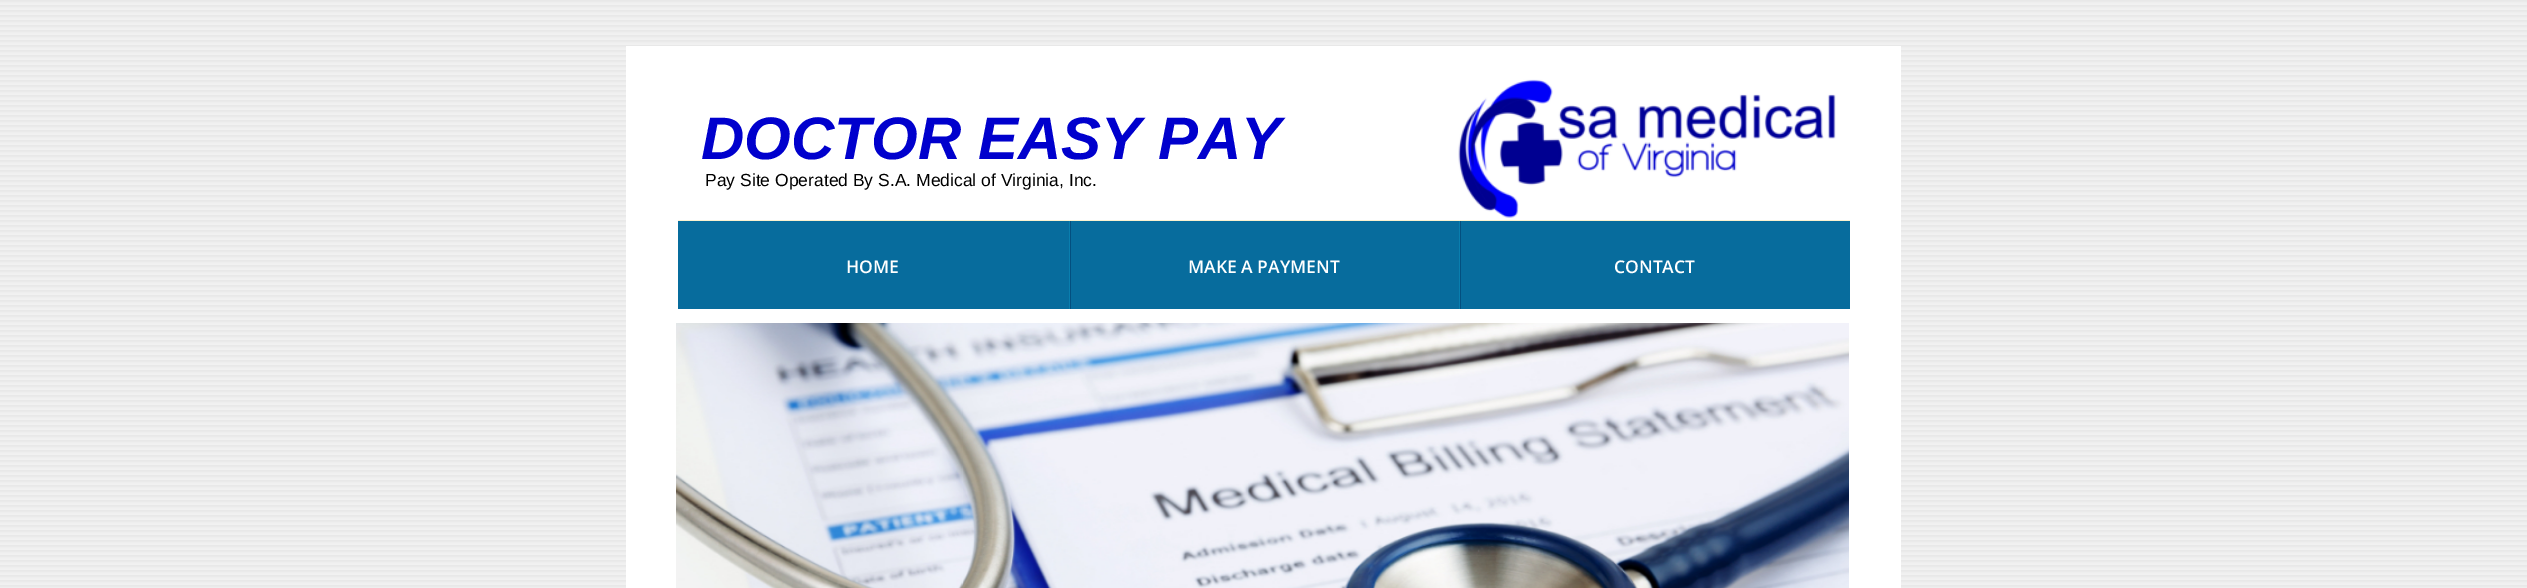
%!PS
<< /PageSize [2527 588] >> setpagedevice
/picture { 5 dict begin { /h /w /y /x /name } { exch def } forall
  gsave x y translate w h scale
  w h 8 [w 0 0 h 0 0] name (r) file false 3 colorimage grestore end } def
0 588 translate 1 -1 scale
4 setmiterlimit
1 setgray
0 0 2527 588 rectfill
(img1.rgb) 0 0 2527 588 picture
626 46 1275 542 rectfill
/LiberationSans-BoldItalic [60 0 0 -60 0 0] selectfont
0 0 0.804 setrgbcolor
701 159 moveto (DOCTOR EASY PAY) show
(img2.rgb) 1458 79 378 139 picture
/LiberationSans-Regular [17.5 0 0 -17.5 0 0] selectfont
0 setgray
705 186 moveto (Pay Site Operated By S.A. Medical of Virginia, Inc.) show
0.027 0.424 0.616 setrgbcolor
678 221 1172 88 rectfill
0.984 0.949 0.816 setrgbcolor
678 220 1172 1 rectfill
/OpenSans-SemiBold [17.5 0 0 -17.5 0 0] selectfont
1 setgray
846 273 moveto (HOME) show
0.012 0.31 0.498 setrgbcolor
1070 221 1 88 rectfill
0.039 0.494 0.682 setrgbcolor
1069 221 1 88 rectfill
1 setgray
1188 273 moveto (MAKE A PAYMENT) show
0.012 0.31 0.498 setrgbcolor
1460 221 1 88 rectfill
0.039 0.494 0.682 setrgbcolor
1459 221 1 88 rectfill
1 setgray
1614 273 moveto (CONTACT) show
(img3.rgb) 676 323 1173 265 picture
showpage
